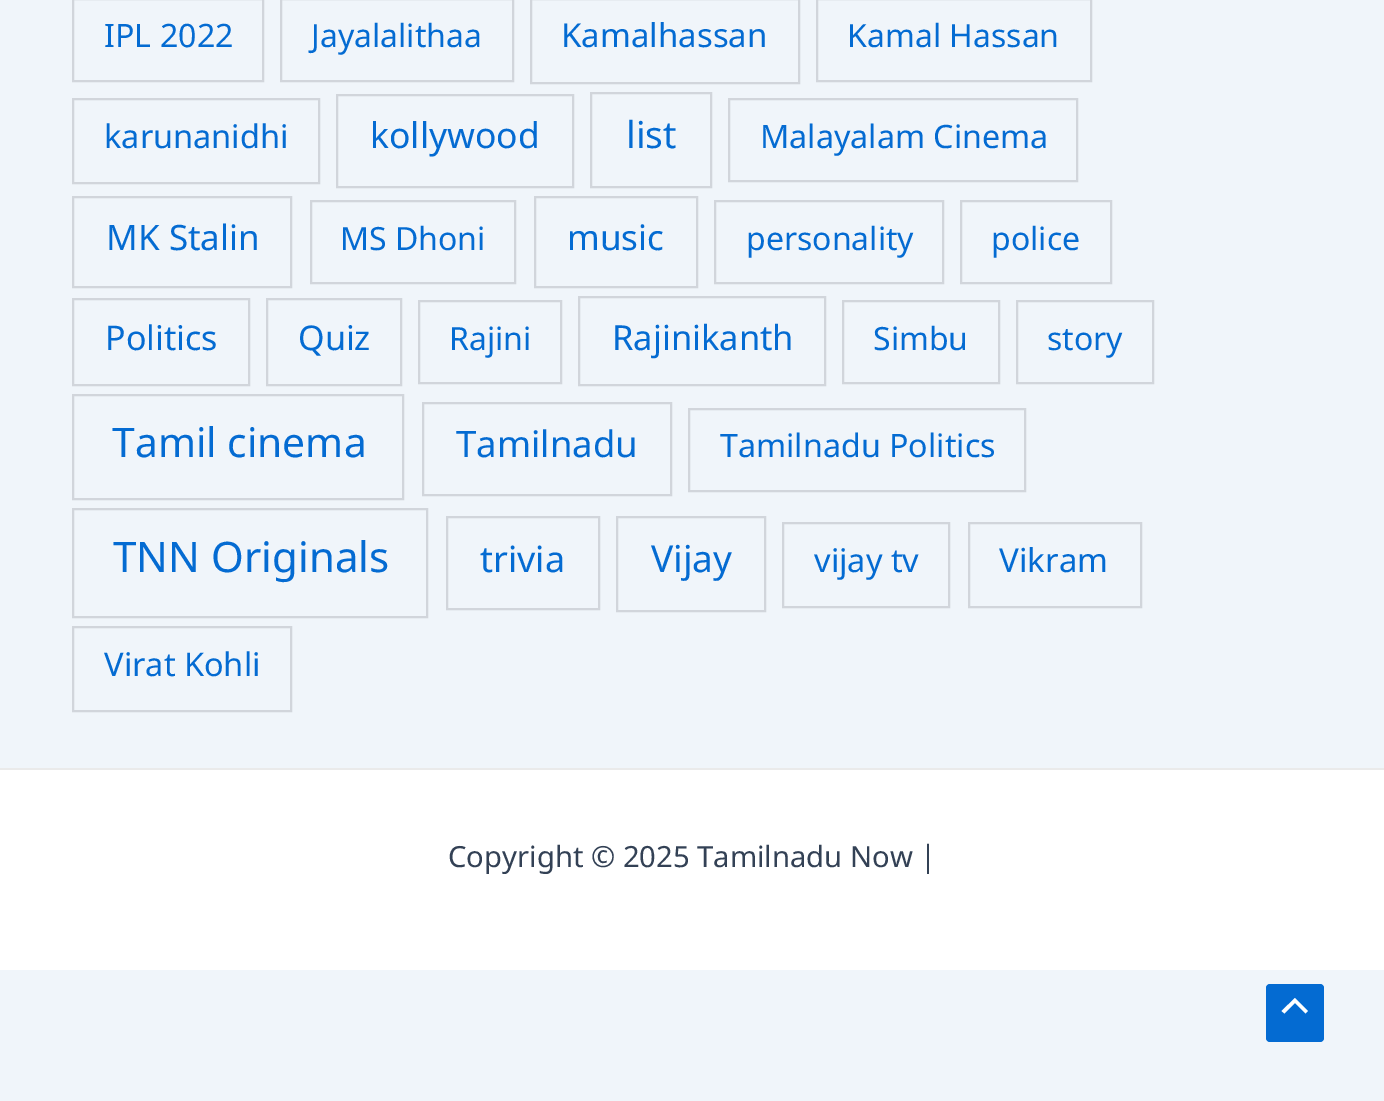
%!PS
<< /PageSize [1384 1101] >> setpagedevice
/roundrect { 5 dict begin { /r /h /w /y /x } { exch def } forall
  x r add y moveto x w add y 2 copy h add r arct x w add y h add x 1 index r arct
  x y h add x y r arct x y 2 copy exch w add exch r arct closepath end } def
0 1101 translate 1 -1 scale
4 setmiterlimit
0.941 0.961 0.98 setrgbcolor
0 0 1384 1101 rectfill
0.82 0.835 0.859 setrgbcolor
2 setlinewidth
73 -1 190 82 rectstroke
/NotoSansTamil-Regular [32.25 0 0 -32.25 0 0] selectfont
0.016 0.42 0.824 setrgbcolor
104 47 moveto (IPL 2022) show
0.82 0.835 0.859 setrgbcolor
281 -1 232 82 rectstroke
/NotoSansTamil-Regular [32 0 0 -32 0 0] selectfont
0.016 0.42 0.824 setrgbcolor
311 47 moveto (Jayalalithaa) show
0.82 0.835 0.859 setrgbcolor
531 -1 268 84 rectstroke
/NotoSansTamil-Regular [33 0 0 -33 0 0] selectfont
0.016 0.42 0.824 setrgbcolor
561 47 moveto (Kamalhassan) show
0.82 0.835 0.859 setrgbcolor
817 -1 274 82 rectstroke
/NotoSansTamil-Regular [32 0 0 -32 0 0] selectfont
0.016 0.42 0.824 setrgbcolor
847 47 moveto (Kamal Hassan) show
0.82 0.835 0.859 setrgbcolor
73 99 246 84 rectstroke
/NotoSansTamil-Regular [32.5 0 0 -32.5 0 0] selectfont
0.016 0.42 0.824 setrgbcolor
104 148 moveto (karunanidhi) show
0.82 0.835 0.859 setrgbcolor
337 95 236 92 rectstroke
/NotoSansTamil-Regular [35.5 0 0 -35.5 0 0] selectfont
0.016 0.42 0.824 setrgbcolor
370 148 moveto (kollywood) show
0.82 0.835 0.859 setrgbcolor
591 93 120 94 rectstroke
/NotoSansTamil-Regular [37 0 0 -37 0 0] selectfont
0.016 0.42 0.824 setrgbcolor
626 148 moveto (list) show
0.82 0.835 0.859 setrgbcolor
729 99 348 82 rectstroke
/NotoSansTamil-Regular [32.25 0 0 -32.25 0 0] selectfont
0.016 0.42 0.824 setrgbcolor
760 148 moveto (Malayalam Cinema) show
0.82 0.835 0.859 setrgbcolor
73 197 218 90 rectstroke
/NotoSansTamil-Regular [35 0 0 -35 0 0] selectfont
0.016 0.42 0.824 setrgbcolor
106 250 moveto (MK Stalin) show
0.82 0.835 0.859 setrgbcolor
311 201 204 82 rectstroke
/NotoSansTamil-Regular [32 0 0 -32 0 0] selectfont
0.016 0.42 0.824 setrgbcolor
340 250 moveto (MS Dhoni) show
0.82 0.835 0.859 setrgbcolor
535 197 162 90 rectstroke
/NotoSansTamil-Regular [35 0 0 -35 0 0] selectfont
0.016 0.42 0.824 setrgbcolor
567 250 moveto (music) show
0.82 0.835 0.859 setrgbcolor
715 201 228 82 rectstroke
/NotoSansTamil-Regular [32 0 0 -32 0 0] selectfont
0.016 0.42 0.824 setrgbcolor
746 250 moveto (personality) show
0.82 0.835 0.859 setrgbcolor
961 201 150 82 rectstroke
0.016 0.42 0.824 setrgbcolor
991 250 moveto (police) show
0.82 0.835 0.859 setrgbcolor
73 299 176 86 rectstroke
/NotoSansTamil-Regular [34 0 0 -34 0 0] selectfont
0.016 0.42 0.824 setrgbcolor
105 350 moveto (Politics) show
0.82 0.835 0.859 setrgbcolor
267 299 134 86 rectstroke
0.016 0.42 0.824 setrgbcolor
298 350 moveto (Quiz) show
0.82 0.835 0.859 setrgbcolor
419 301 142 82 rectstroke
/NotoSansTamil-Regular [32 0 0 -32 0 0] selectfont
0.016 0.42 0.824 setrgbcolor
449 350 moveto (Rajini) show
0.82 0.835 0.859 setrgbcolor
579 297 246 88 rectstroke
/NotoSansTamil-Regular [34.5 0 0 -34.5 0 0] selectfont
0.016 0.42 0.824 setrgbcolor
612 350 moveto (Rajinikanth) show
0.82 0.835 0.859 setrgbcolor
843 301 156 82 rectstroke
/NotoSansTamil-Regular [32 0 0 -32 0 0] selectfont
0.016 0.42 0.824 setrgbcolor
873 350 moveto (Simbu) show
0.82 0.835 0.859 setrgbcolor
1017 301 136 82 rectstroke
0.016 0.42 0.824 setrgbcolor
1047 350 moveto (story) show
0.82 0.835 0.859 setrgbcolor
73 395 330 104 rectstroke
/NotoSansTamil-Regular [40.75 0 0 -40.75 0 0] selectfont
0.016 0.42 0.824 setrgbcolor
112 457 moveto (Tamil cinema) show
0.82 0.835 0.859 setrgbcolor
423 403 248 92 rectstroke
/NotoSansTamil-Regular [36.5 0 0 -36.5 0 0] selectfont
0.016 0.42 0.824 setrgbcolor
456 457 moveto (Tamilnadu) show
0.82 0.835 0.859 setrgbcolor
689 409 336 82 rectstroke
/NotoSansTamil-Regular [32.25 0 0 -32.25 0 0] selectfont
0.016 0.42 0.824 setrgbcolor
720 457 moveto (Tamilnadu Politics) show
0.82 0.835 0.859 setrgbcolor
73 509 354 108 rectstroke
/NotoSansTamil-Regular [42 0 0 -42 0 0] selectfont
0.016 0.42 0.824 setrgbcolor
113 572 moveto (TNN Originals) show
0.82 0.835 0.859 setrgbcolor
447 517 152 92 rectstroke
/NotoSansTamil-Regular [36 0 0 -36 0 0] selectfont
0.016 0.42 0.824 setrgbcolor
480 572 moveto (trivia) show
0.82 0.835 0.859 setrgbcolor
617 517 148 94 rectstroke
/NotoSansTamil-Regular [37 0 0 -37 0 0] selectfont
0.016 0.42 0.824 setrgbcolor
651 572 moveto (Vijay) show
0.82 0.835 0.859 setrgbcolor
783 523 166 84 rectstroke
/NotoSansTamil-Regular [32.5 0 0 -32.5 0 0] selectfont
0.016 0.42 0.824 setrgbcolor
814 572 moveto (vijay tv) show
0.82 0.835 0.859 setrgbcolor
969 523 172 84 rectstroke
/NotoSansTamil-Regular [33 0 0 -33 0 0] selectfont
0.016 0.42 0.824 setrgbcolor
999 572 moveto (Vikram) show
0.82 0.835 0.859 setrgbcolor
73 627 218 84 rectstroke
/NotoSansTamil-Regular [32.5 0 0 -32.5 0 0] selectfont
0.016 0.42 0.824 setrgbcolor
104 676 moveto (Virat Kohli) show
1 setgray
0 770 1384 200 rectfill
0.918 setgray
0 768 1384 2 rectfill
/NotoSansTamil-Regular [29.2 0 0 -29.2 0 0] selectfont
0.2 0.255 0.333 setrgbcolor
448 867 moveto (Copyright © 2025 Tamilnadu Now |) show
0.016 0.42 0.824 setrgbcolor
1266 984 58 58 4 roundrect fill
1 setgray
newpath 1308 1011 moveto 1295 998 lineto 1281.5 1011 lineto 1284.5 1013.5 lineto 1295 1003 lineto 1305.5 1013.5 lineto closepath fill
showpage
